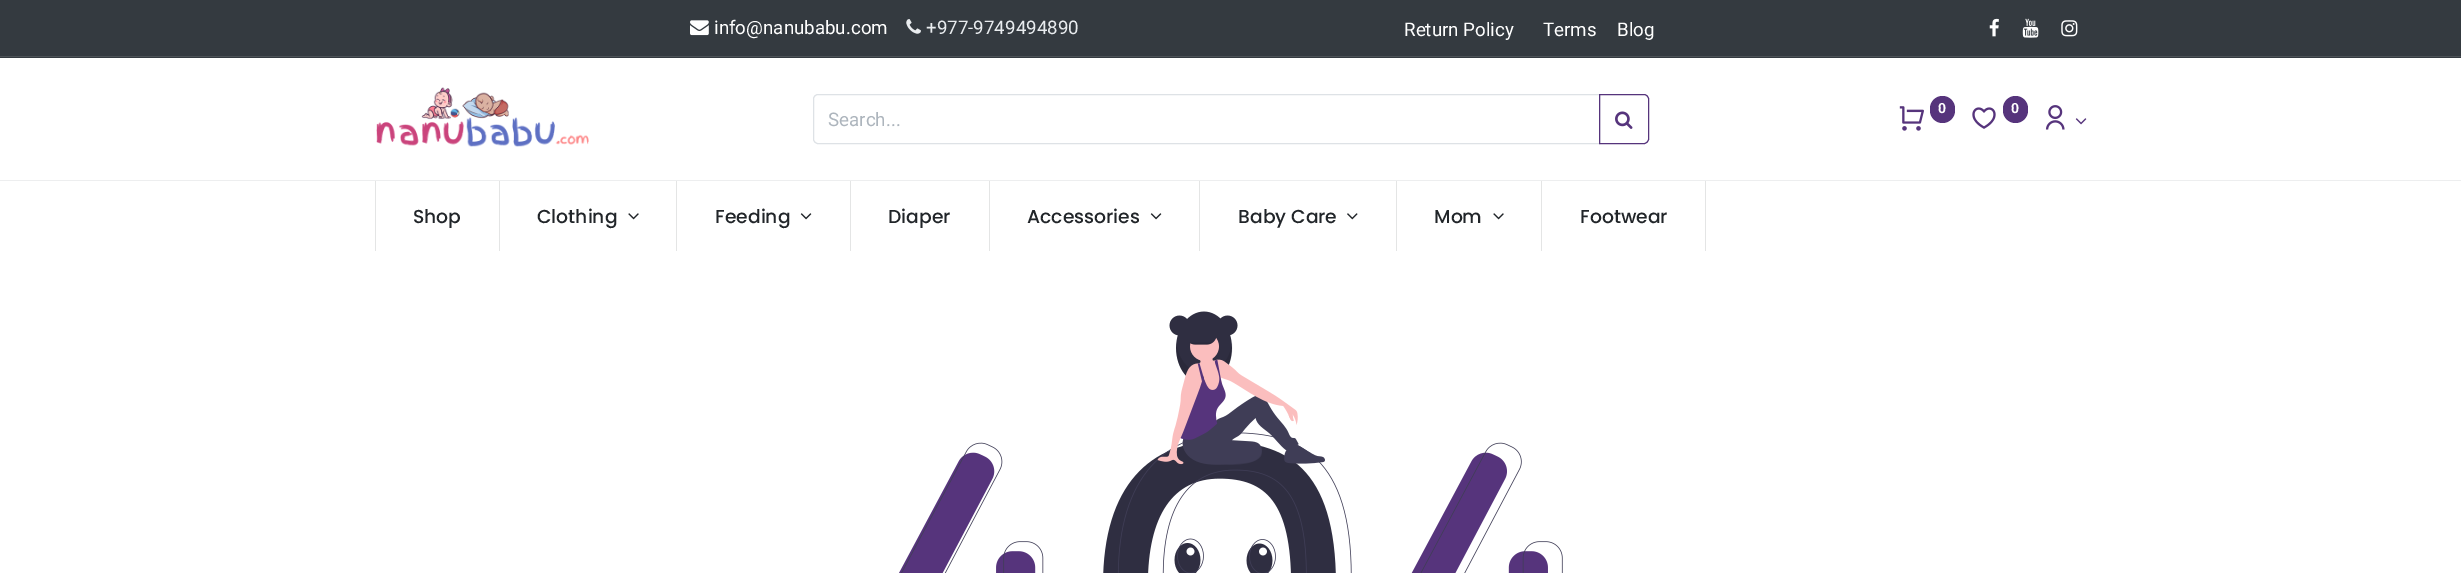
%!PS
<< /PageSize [2461 573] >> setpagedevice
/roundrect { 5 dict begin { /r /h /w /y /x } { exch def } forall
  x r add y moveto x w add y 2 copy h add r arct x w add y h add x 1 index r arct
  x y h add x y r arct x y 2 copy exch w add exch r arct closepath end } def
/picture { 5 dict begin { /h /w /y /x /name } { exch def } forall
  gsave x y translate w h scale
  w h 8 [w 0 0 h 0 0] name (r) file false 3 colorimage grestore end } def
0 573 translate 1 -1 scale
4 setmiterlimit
1 setgray
0 0 2461 573 rectfill
0.204 0.227 0.251 setrgbcolor
0 0 2461 58 rectfill
0.298 0.322 0.341 setrgbcolor
0 56 2461 1 rectfill
(img1.rgb) 690 20 19 16 picture
/Roboto-Regular [18.75 0 0 -18.75 0 0] selectfont
1 setgray
714 34 moveto (info@nanubabu.com) show
(img2.rgb) 906 19 15 15 picture
0.914 0.925 0.937 setrgbcolor
926 34 moveto (+977-9749494890) show
1 setgray
1404 36 moveto (Return Policy) show
1543 36 moveto (Terms) show
1617 36 moveto (Blog) show
(img3.rgb) 1989 18 10 19 picture
(img4.rgb) 2022 18 17 20 picture
(img5.rgb) 2061 20 17 17 picture
0.929 0.933 0.937 setrgbcolor
0 180 2461 1 rectfill
(img6.rgb) 376 87 213 60 picture
(img7.rgb) 1899 106 25 25 picture
0.337 0.204 0.486 setrgbcolor
1930 96 25 27 12.5 roundrect fill
/Roboto-Bold [14 0 0 -14 0 0] selectfont
1 setgray
1938 113 moveto (0) show
(img8.rgb) 1972 107 24 22 picture
0.337 0.204 0.486 setrgbcolor
2003 96 25 27 12.5 roundrect fill
1 setgray
2011 113 moveto (0) show
(img9.rgb) 2045 105 20 25 picture
(img10.rgb) 2075 118 12 7 picture
0.871 0.886 0.902 setrgbcolor
newpath 818 94.5 moveto 1599.5 94.5 lineto 1599.5 143.5 lineto 818 143.5 lineto 815.5 143.5 813.5 141.5 813.5 139 curveto 813.5 99 lineto 813.5 96.5 815.5 94.5 818 94.5 curveto closepath stroke
/Roboto-Regular [18.75 0 0 -18.75 0 0] selectfont
0.678 0.71 0.741 setrgbcolor
828 126 moveto (Search...) show
0.337 0.204 0.486 setrgbcolor
newpath 1599.5 94.5 moveto 1644 94.5 lineto 1646.5 94.5 1648.5 96.5 1648.5 99 curveto 1648.5 139 lineto 1648.5 141.5 1646.5 143.5 1644 143.5 curveto 1599.5 143.5 lineto closepath stroke
(img11.rgb) 1615 111 18 18 picture
0.894 0.898 0.898 setrgbcolor
375 181 1 70 rectfill
/Poppins-Medium [18.75 0 0 -18.75 0 0] selectfont
0.129 0.145 0.161 setrgbcolor
413 223 moveto (Shop) show
0.894 0.898 0.898 setrgbcolor
499 181 1 70 rectfill
0.129 0.145 0.161 setrgbcolor
537 223 moveto (Clothing) show
(img12.rgb) 628 213 11 7 picture
0.894 0.898 0.898 setrgbcolor
676 181 1 70 rectfill
0.129 0.145 0.161 setrgbcolor
715 223 moveto (Feeding) show
(img13.rgb) 800 213 12 7 picture
0.894 0.898 0.898 setrgbcolor
850 181 1 70 rectfill
0.129 0.145 0.161 setrgbcolor
888 223 moveto (Diaper) show
0.894 0.898 0.898 setrgbcolor
989 181 1 70 rectfill
0.129 0.145 0.161 setrgbcolor
1027 223 moveto (Accessories) show
(img13.rgb) 1150 213 12 7 picture
0.894 0.898 0.898 setrgbcolor
1199 181 1 70 rectfill
0.129 0.145 0.161 setrgbcolor
1238 223 moveto (Baby Care) show
(img14.rgb) 1347 213 11 7 picture
0.894 0.898 0.898 setrgbcolor
1396 181 1 70 rectfill
0.129 0.145 0.161 setrgbcolor
1434 223 moveto (Mom) show
(img12.rgb) 1493 213 11 7 picture
0.894 0.898 0.898 setrgbcolor
1705 181 1 70 rectfill
1541 181 1 70 rectfill
0.129 0.145 0.161 setrgbcolor
1580 223 moveto (Footwear) show
(img15.rgb) 899 311 664 262 picture
showpage
